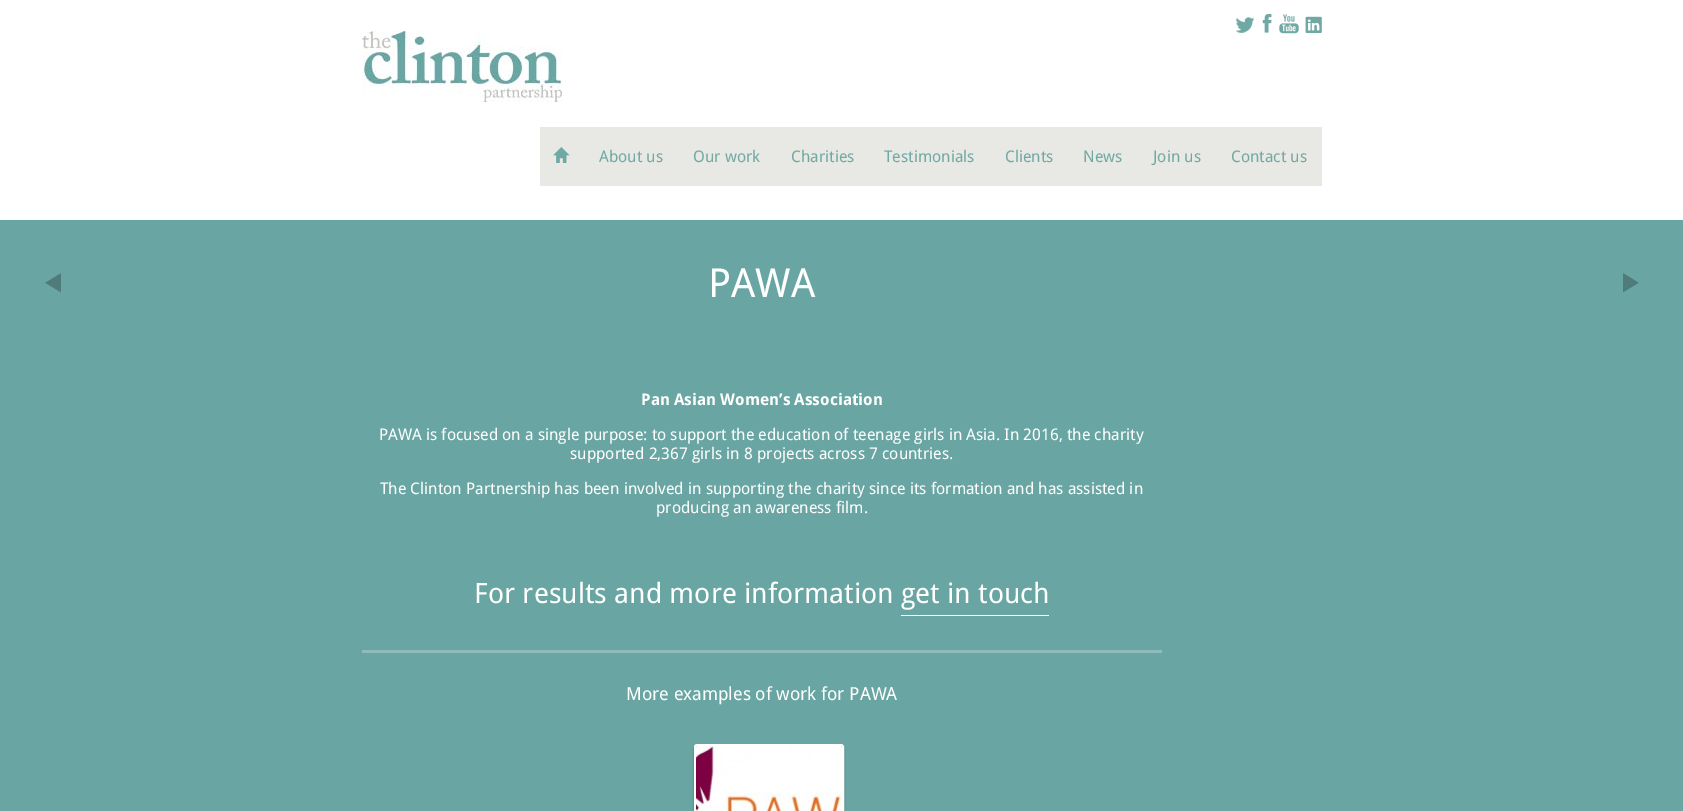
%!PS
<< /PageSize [1683 811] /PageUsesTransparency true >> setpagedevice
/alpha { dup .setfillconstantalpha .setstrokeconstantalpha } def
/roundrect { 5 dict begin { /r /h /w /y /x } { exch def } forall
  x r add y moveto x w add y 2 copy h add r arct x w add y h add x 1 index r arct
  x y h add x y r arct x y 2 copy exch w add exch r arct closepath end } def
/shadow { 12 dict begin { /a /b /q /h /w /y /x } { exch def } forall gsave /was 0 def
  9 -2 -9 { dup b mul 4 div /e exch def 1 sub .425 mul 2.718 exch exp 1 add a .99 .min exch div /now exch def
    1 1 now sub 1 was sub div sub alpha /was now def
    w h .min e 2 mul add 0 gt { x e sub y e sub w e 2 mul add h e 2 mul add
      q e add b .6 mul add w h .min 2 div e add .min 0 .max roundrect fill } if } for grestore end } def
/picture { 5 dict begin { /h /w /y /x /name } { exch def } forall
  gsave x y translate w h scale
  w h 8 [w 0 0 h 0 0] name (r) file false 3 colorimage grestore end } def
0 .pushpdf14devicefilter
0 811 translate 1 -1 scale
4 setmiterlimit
1 setgray
0 0 1683 811 rectfill
(img1.rgb) 1236 17 18 16 picture
(img2.rgb) 1262 14 10 19 picture
(img3.rgb) 1279 14 20 20 picture
(img4.rgb) 1305 16 17 17 picture
(img5.rgb) 362 31 200 71 picture
0.91 0.91 0.894 setrgbcolor
540 127 782 59 rectfill
(img6.rgb) 553 147 17 16 picture
/DroidSans-Regular [16 0 0 -16 0 0] selectfont
0.439 0.659 0.643 setrgbcolor
599 162 moveto (About us) show
693 162 moveto (Our work) show
791 162 moveto (Charities) show
884 162 moveto (Testimonials) show
1005 162 moveto (Clients) show
1083 162 moveto (News) show
1153 162 moveto (Join us) show
1231 162 moveto (Contact us) show
0.412 0.651 0.639 setrgbcolor
0 220 1683 591 rectfill
(img7.rgb) 45 273 16 20 picture
/DroidSans-Regular [40 0 0 -40 0 0] selectfont
1 setgray
708 297 moveto (PAWA) show
/DroidSans-Bold [16 0 0 -16 0 0] selectfont
641 405 moveto (Pan Asian Women’s Association) show
/DroidSans-Regular [16 0 0 -16 0 0] selectfont
379 440 moveto (PAWA is focused on a single purpose: to support the education of teenage girls in Asia. In 2016, the charity) show
570 459 moveto (supported 2,367 girls in 8 projects across 7 countries.) show
380 494 moveto (The Clinton Partnership has been involved in supporting the charity since its formation and has assisted in) show
656 513 moveto (producing an awareness film.) show
0.561 0.737 0.729 setrgbcolor
362 650 800 3 rectfill
/DroidSans-Regular [28 0 0 -28 0 0] selectfont
1 setgray
474 603 moveto (For results and more information get in touch) show
901 615 148 1 rectfill
/DroidSans-Regular [18 0 0 -18 0 0] selectfont
626 700 moveto (More examples of work for PAWA) show
0 setgray
694 746 150 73 3 1.5 0.2 shadow
1 setgray
2 setlinewidth
695 745 148 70 2 roundrect stroke
(img8.rgb) 696 746 146 65 picture
(img9.rgb) 1623 273 16 20 picture
.poppdf14devicefilter showpage
